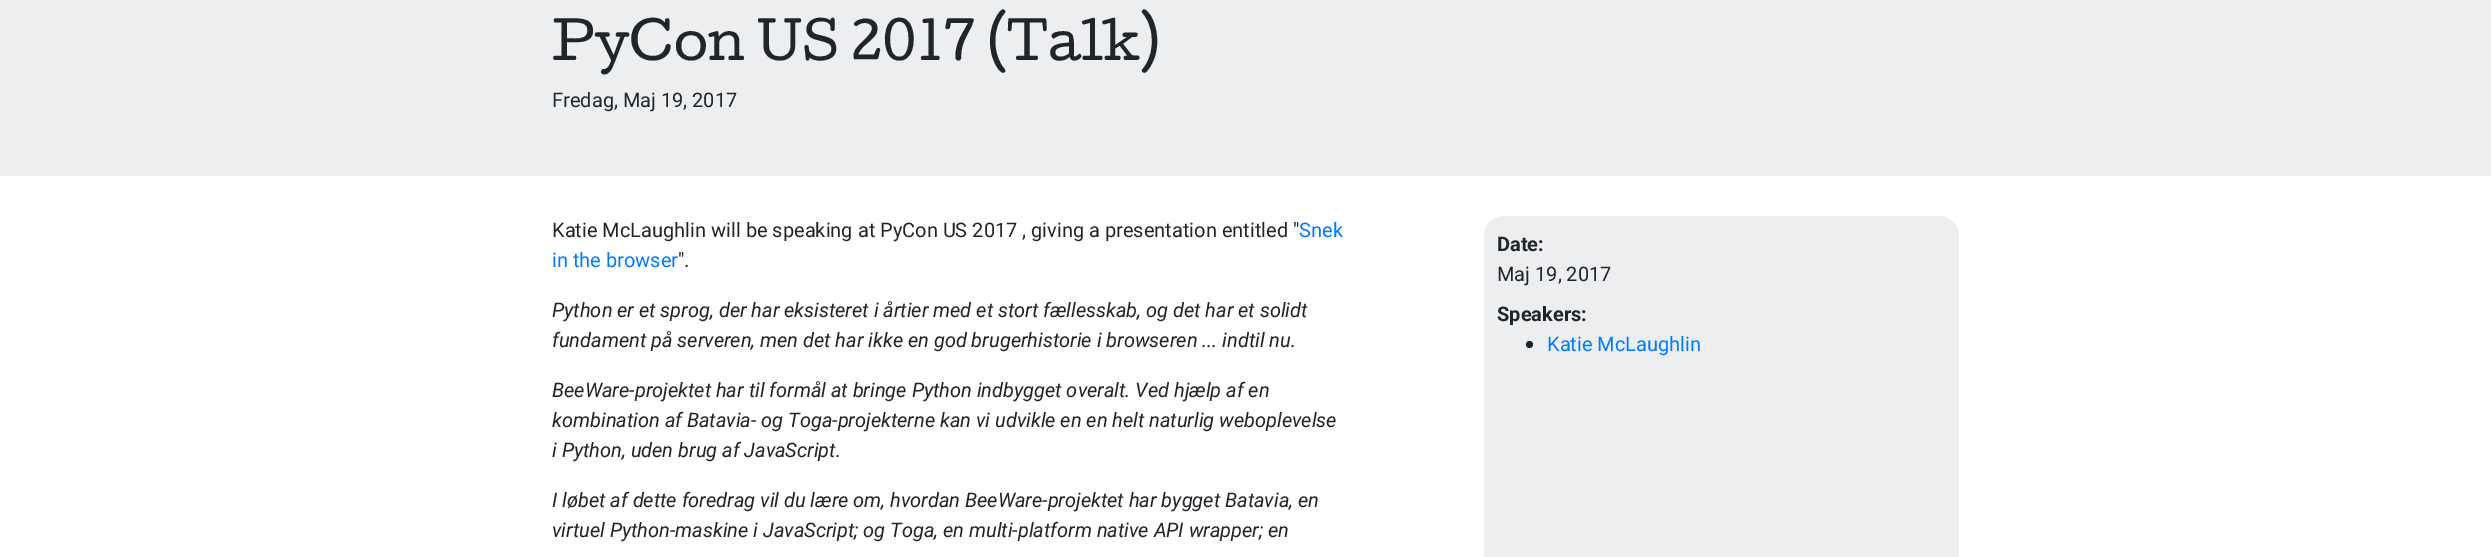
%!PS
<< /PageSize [2491 557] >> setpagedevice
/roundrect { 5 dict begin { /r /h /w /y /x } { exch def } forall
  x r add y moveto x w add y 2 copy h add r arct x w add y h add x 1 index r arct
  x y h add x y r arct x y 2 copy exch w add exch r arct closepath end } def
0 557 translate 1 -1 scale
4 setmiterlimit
1 setgray
0 0 2491 557 rectfill
0.925 0.933 0.937 setrgbcolor
0 0 2491 176 rectfill
/Cutive-Regular [50 0 0 -50 0 0] selectfont
0.129 0.145 0.161 setrgbcolor
552 60 moveto (PyCon US 2017 \(Talk\)) show
/Roboto-Regular [20 0 0 -20 0 0] selectfont
552 107 moveto (Fredag, Maj 19, 2017) show
552 237 moveto (Katie McLaughlin will be speaking at PyCon US 2017 , giving a presentation entitled ") show
0 0.482 1 setrgbcolor
1299 237 moveto (Snek) show
552 267 moveto (in the browser) show
0.129 0.145 0.161 setrgbcolor
678 267 moveto (".) show
/Roboto-Italic [20 0 0 -20 0 0] selectfont
552 317 moveto (Python er et sprog, der har eksisteret i årtier med et stort fællesskab, og det har et solidt) show
552 347 moveto (fundament på serveren, men det har ikke en god brugerhistorie i browseren ... indtil nu.) show
552 397 moveto (BeeWare-projektet har til formål at bringe Python indbygget overalt. Ved hjælp af en) show
552 427 moveto (kombination af Batavia- og Toga-projekterne kan vi udvikle en en helt naturlig weboplevelse) show
552 457 moveto (i Python, uden brug af JavaScript.) show
552 507 moveto (I løbet af dette foredrag vil du lære om, hvordan BeeWare-projektet har bygget Batavia, en) show
552 537 moveto (virtuel Python-maskine i JavaScript; og Toga, en multi-platform native API wrapper; en) show
0.925 0.933 0.937 setrgbcolor
1484 216 475 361 20 roundrect fill
/Roboto-Bold [20 0 0 -20 0 0] selectfont
0.129 0.145 0.161 setrgbcolor
1497 251 moveto (Date:) show
/Roboto-Regular [20 0 0 -20 0 0] selectfont
1497 281 moveto (Maj 19, 2017) show
/Roboto-Bold [20 0 0 -20 0 0] selectfont
1497 321 moveto (Speakers:) show
newpath 1529.5 344.5 3.5 0 360 arc closepath fill
/Roboto-Regular [20 0 0 -20 0 0] selectfont
0 0.482 1 setrgbcolor
1547 351 moveto (Katie McLaughlin) show
showpage
